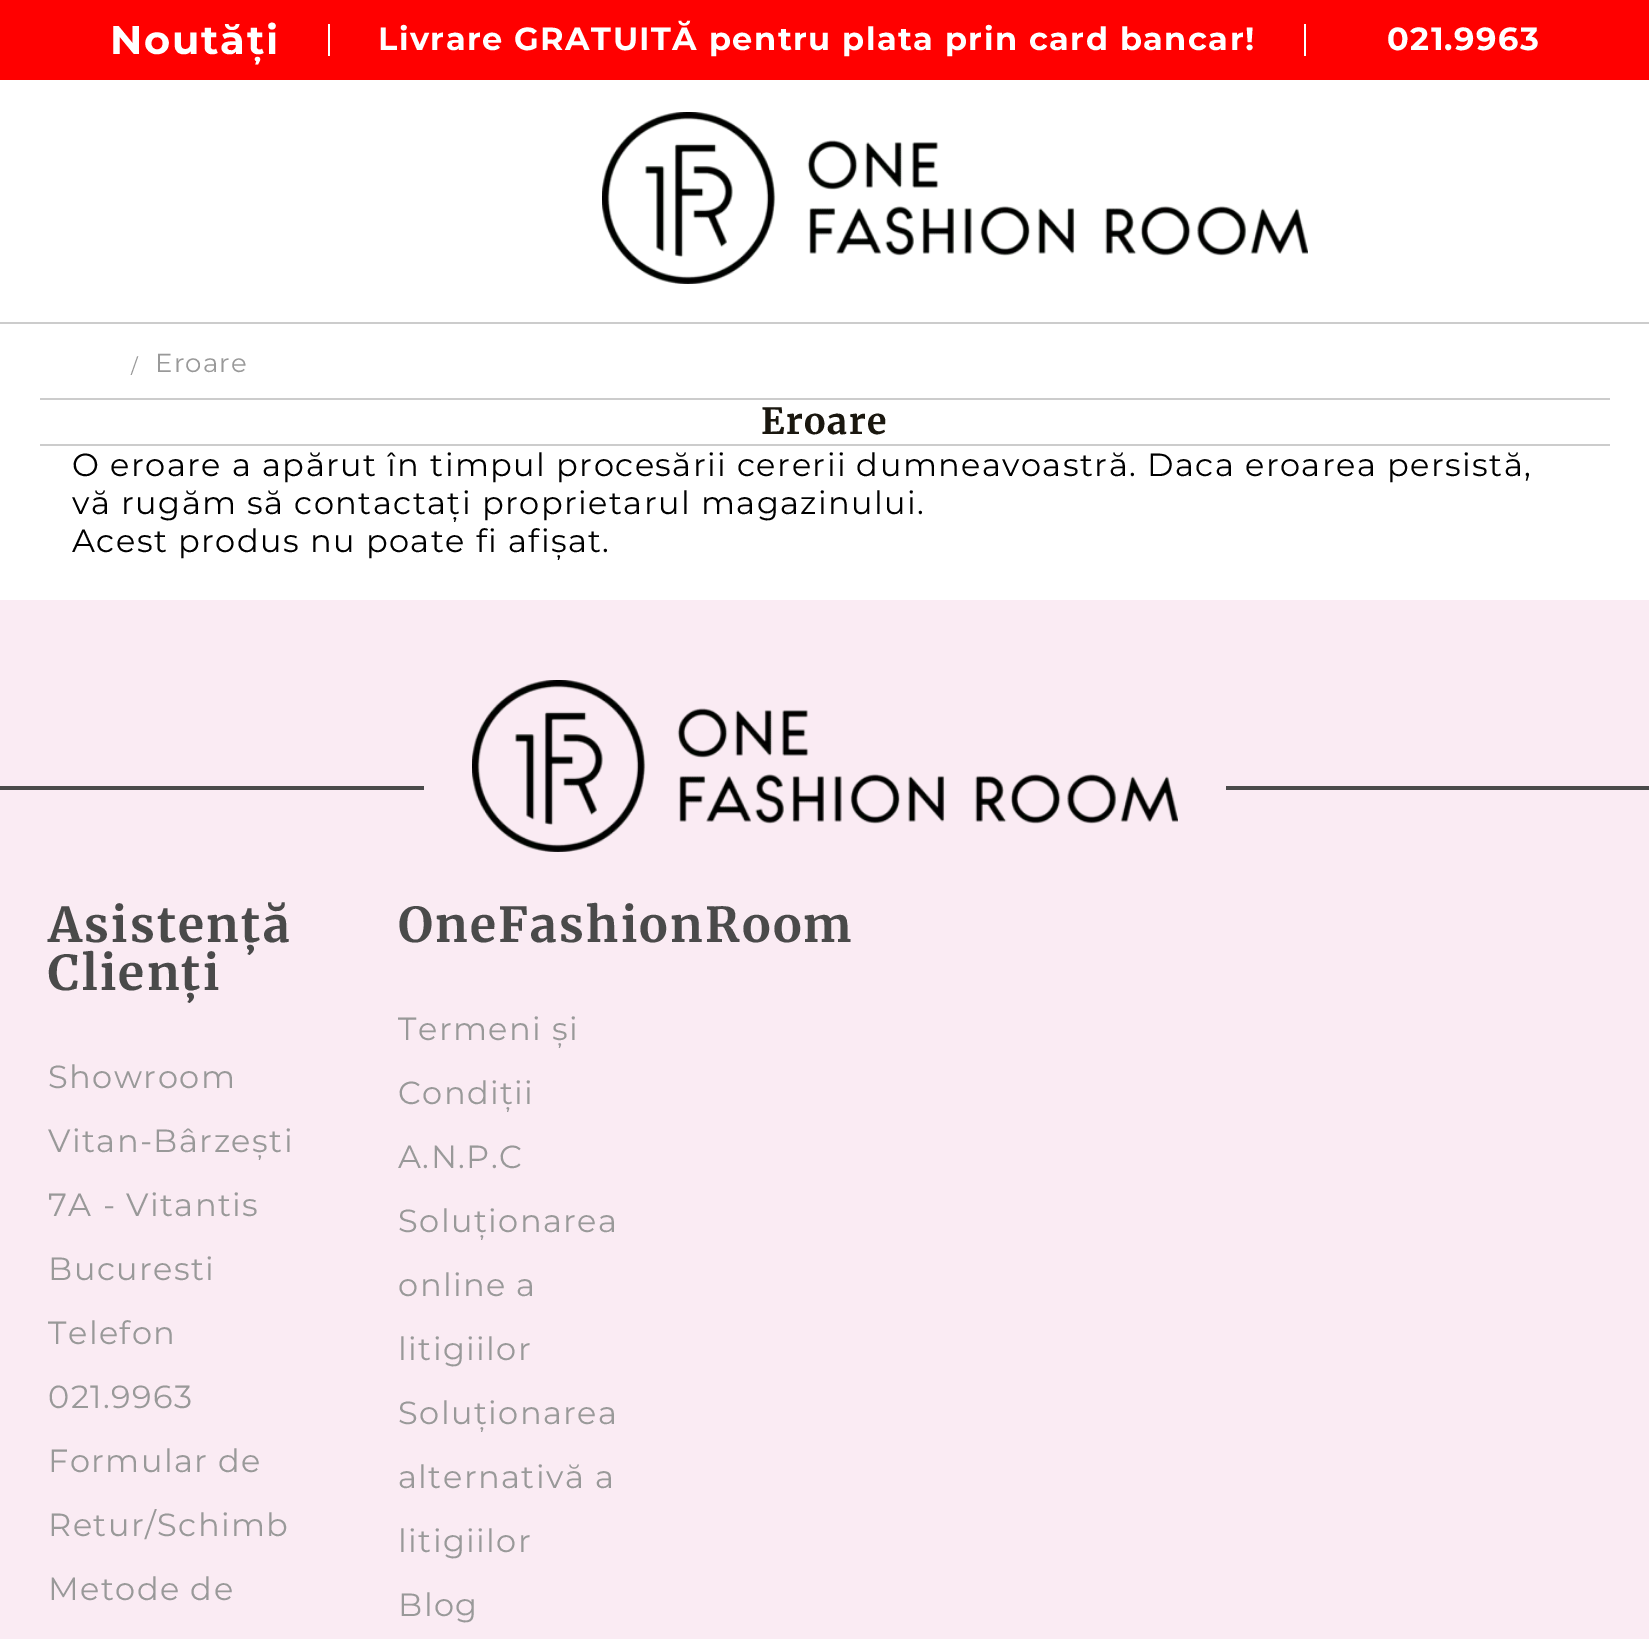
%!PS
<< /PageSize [1649 1639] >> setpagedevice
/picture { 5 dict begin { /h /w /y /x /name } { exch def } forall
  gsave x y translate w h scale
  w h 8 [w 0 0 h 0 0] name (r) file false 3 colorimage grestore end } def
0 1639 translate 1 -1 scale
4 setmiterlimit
1 setgray
0 0 1649 1639 rectfill
1 0 0 setrgbcolor
0 0 1649 80 rectfill
/Montserrat-Bold [40 0 0 -40 0 0] selectfont
1 setgray
110 54 moveto 1.75 0 (Noutăți) ashow
1304 24 2 32 rectfill
328 24 2 32 rectfill
/Montserrat-Bold [32 0 0 -32 0 0] selectfont
378 50 moveto 1.45 0 (Livrare GRATUITĂ pentru plata prin card bancar!) ashow
1387 50 moveto 1.45 0 (021.9963) ashow
0.8 setgray
0 322 1649 2 rectfill
(img1.rgb) 602 112 706 172 picture
40 398 1570 2 rectfill
/Montserrat-Regular [20 0 0 -20 0 0] selectfont
0.6 setgray
131 373 moveto 1 0 (/) ashow
/Montserrat-Regular [26 0 0 -26 0 0] selectfont
155 372 moveto 1.25 0 (Eroare) ashow
0.8 setgray
40 444 1570 2 rectfill
/Merriweather-Bold [36 0 0 -36 0 0] selectfont
0.102 0.09 0.059 setrgbcolor
761 434 moveto 1.5 0 (Eroare) ashow
/Montserrat-Regular [32 0 0 -32 0 0] selectfont
0 setgray
72 476 moveto 1.45 0 (O eroare a apărut în timpul procesării cererii dumneavoastră. Daca eroarea persistă,) ashow
72 514 moveto 1.45 0 (vă rugăm să contactați proprietarul magazinului.) ashow
72 552 moveto 1.45 0 (Acest produs nu poate fi afișat.) ashow
0.98 0.922 0.953 setrgbcolor
0 600 1649 1039 rectfill
0.29 setgray
0 786 1649 4 rectfill
0.98 0.922 0.953 setrgbcolor
424 786 802 4 rectfill
(img2.rgb) 472 680 706 172 picture
/Merriweather-Bold [48 0 0 -48 0 0] selectfont
0.29 setgray
48 942 moveto 2.2 0 (Asistență) ashow
48 990 moveto 2.2 0 (Clienți) ashow
/Montserrat-Regular [32 0 0 -32 0 0] selectfont
0.6 setgray
48 1088 moveto 1.45 0 (Showroom) ashow
48 1152 moveto 1.45 0 (Vitan-Bârzești) ashow
48 1216 moveto 1.45 0 (7A - Vitantis) ashow
48 1280 moveto 1.45 0 (Bucuresti) ashow
48 1344 moveto 1.45 0 (Telefon) ashow
48 1408 moveto 1.45 0 (021.9963) ashow
48 1472 moveto 1.45 0 (Formular de) ashow
48 1536 moveto 1.45 0 (Retur/Schimb) ashow
48 1600 moveto 1.45 0 (Metode de) ashow
/Merriweather-Bold [48 0 0 -48 0 0] selectfont
0.29 setgray
398 942 moveto 2.2 0 (OneFashionRoom) ashow
/Montserrat-Regular [32 0 0 -32 0 0] selectfont
0.6 setgray
398 1040 moveto 1.45 0 (Termeni și) ashow
398 1104 moveto 1.45 0 (Condiții) ashow
398 1168 moveto 1.45 0 (A.N.P.C) ashow
398 1232 moveto 1.45 0 (Soluționarea) ashow
398 1296 moveto 1.45 0 (online a) ashow
398 1360 moveto 1.45 0 (litigiilor) ashow
398 1424 moveto 1.45 0 (Soluționarea) ashow
398 1488 moveto 1.45 0 (alternativă a) ashow
398 1552 moveto 1.45 0 (litigiilor) ashow
398 1616 moveto 1.45 0 (Blog) ashow
showpage
